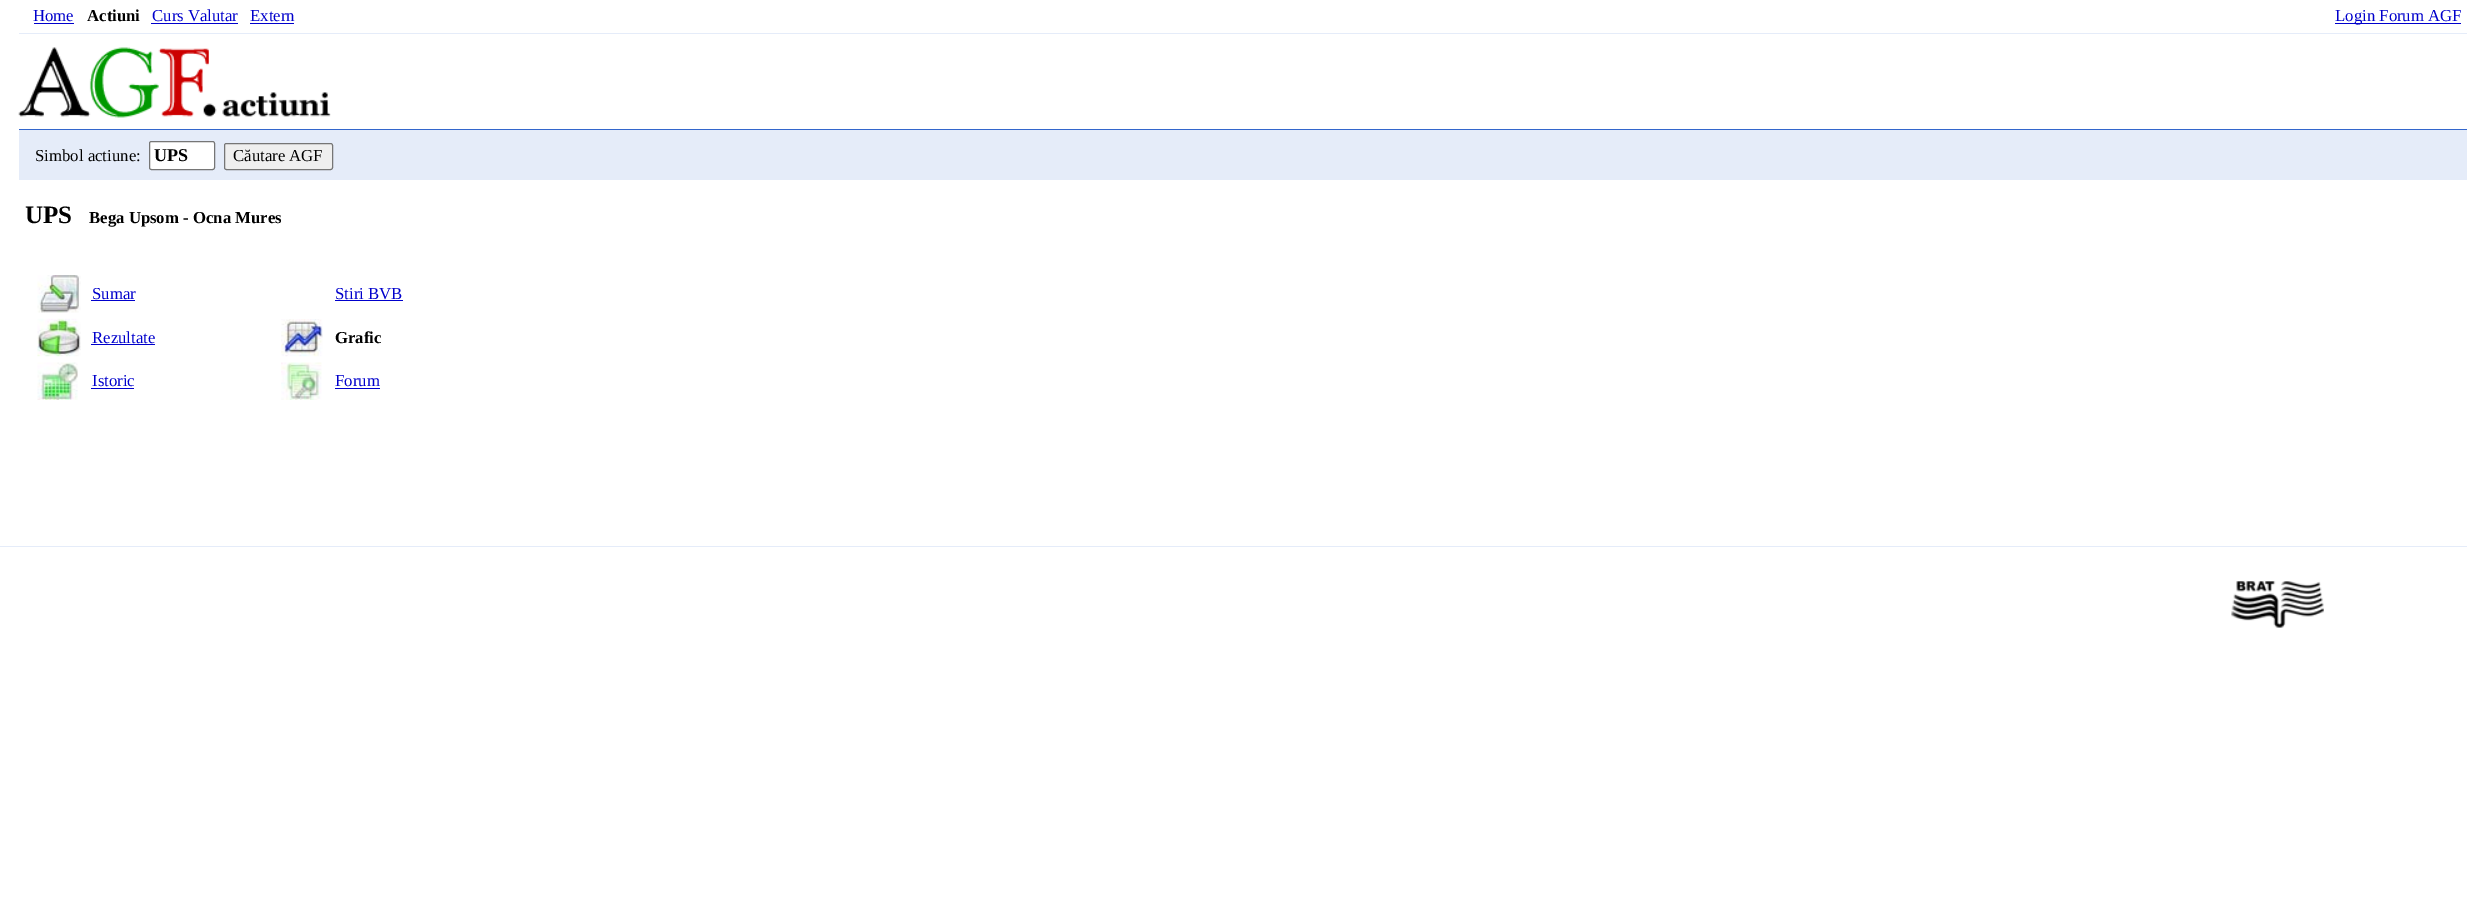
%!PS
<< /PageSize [2467 900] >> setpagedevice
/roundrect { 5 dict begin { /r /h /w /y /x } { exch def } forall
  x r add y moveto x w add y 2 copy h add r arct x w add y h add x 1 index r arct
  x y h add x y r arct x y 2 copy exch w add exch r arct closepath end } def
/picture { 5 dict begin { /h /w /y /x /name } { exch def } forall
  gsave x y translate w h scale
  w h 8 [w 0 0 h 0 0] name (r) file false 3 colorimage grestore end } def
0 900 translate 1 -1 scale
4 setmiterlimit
1 setgray
0 0 2467 900 rectfill
/LiberationSerif-Regular [16.75 0 0 -16.75 0 0] selectfont
0 0 0.8 setrgbcolor
33 21 moveto (Home) show
34 23 40 1 rectfill
/LiberationSerif-Bold [16.75 0 0 -16.75 0 0] selectfont
0 setgray
87 21 moveto (Actiuni) show
/LiberationSerif-Regular [16.75 0 0 -16.75 0 0] selectfont
0 0 0.8 setrgbcolor
152 21 moveto (Curs Valutar) show
151 23 87 1 rectfill
250 21 moveto (Extern) show
250 23 44 1 rectfill
2335 23 126 1 rectfill
2335 21 moveto (Login Forum AGF) show
0.898 0.925 0.976 setrgbcolor
19 33 2448 1 rectfill
(img1.rgb) 18 47 313 71 picture
19 130 2448 50 rectfill
0.2 0.4 0.8 setrgbcolor
19 129 2448 1 rectfill
0 setgray
35 161 moveto (Simbol actiune:) show
1 setgray
149.5 141.5 65 28 2 roundrect gsave fill grestore
0.463 setgray
stroke
/LiberationSerif-Bold [18 0 0 -18 0 0] selectfont
0 setgray
154 161 moveto (UPS) show
0.937 setgray
224.5 143.5 108 26 2 roundrect gsave fill grestore
0.463 setgray
stroke
/LiberationSerif-Regular [16.75 0 0 -16.75 0 0] selectfont
0 setgray
233 161 moveto (Căutare AGF) show
/LiberationSerif-Bold [25 0 0 -25 0 0] selectfont
25 223 moveto (UPS) show
/LiberationSerif-Bold [16.75 0 0 -16.75 0 0] selectfont
89 223 moveto (Bega Upsom - Ocna Mures) show
(img2.rgb) 37 275 44 38 picture
/LiberationSerif-Regular [16.75 0 0 -16.75 0 0] selectfont
0 0 0.8 setrgbcolor
92 299 moveto (Sumar) show
91 300 44 1 rectfill
335 299 moveto (Stiri BVB) show
335 300 68 1 rectfill
(img3.rgb) 37 318 44 39 picture
92 343 moveto (Rezultate) show
91 344 64 1 rectfill
(img4.rgb) 281 319 42 38 picture
/LiberationSerif-Bold [16.75 0 0 -16.75 0 0] selectfont
0 setgray
335 343 moveto (Grafic) show
(img5.rgb) 37 362 41 38 picture
/LiberationSerif-Regular [16.75 0 0 -16.75 0 0] selectfont
0 0 0.8 setrgbcolor
92 386 moveto (Istoric) show
91 388 43 1 rectfill
(img6.rgb) 281 362 41 38 picture
335 386 moveto (Forum) show
335 388 45 1 rectfill
0.898 0.925 0.976 setrgbcolor
0 546 2467 1 rectfill
(img7.rgb) 2231 581 93 47 picture
showpage
